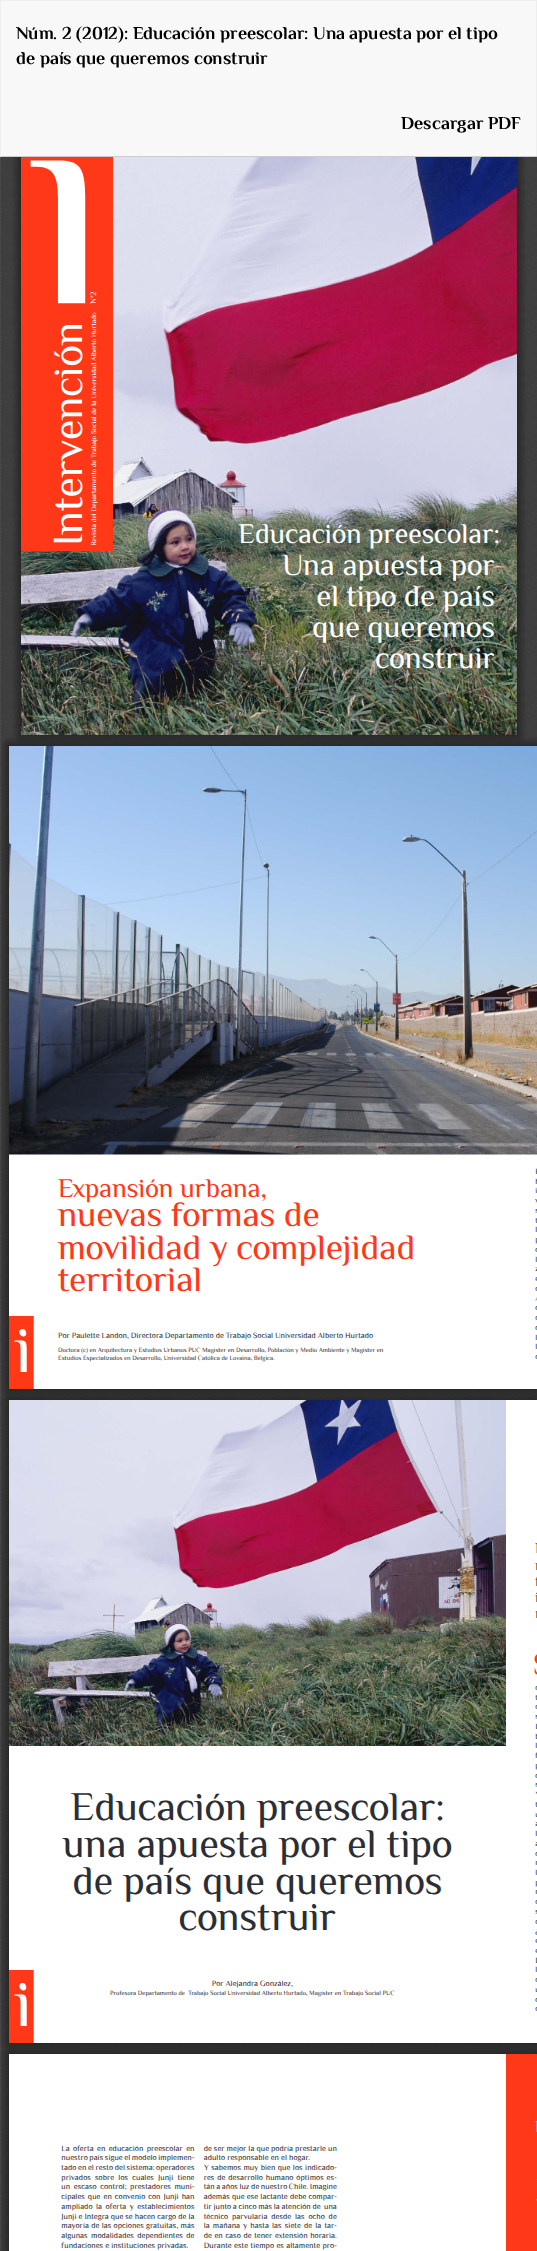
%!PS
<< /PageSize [537 2251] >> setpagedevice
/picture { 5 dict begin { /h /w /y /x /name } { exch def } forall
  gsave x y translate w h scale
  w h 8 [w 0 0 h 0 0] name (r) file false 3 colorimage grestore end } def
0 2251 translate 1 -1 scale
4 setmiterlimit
1 setgray
0 0 537 2251 rectfill
0.973 setgray
1 1 535 155 rectfill
0.933 setgray
0 0 537 1 rectfill
536 0 1 157 rectfill
0.8 setgray
0 156 537 1 rectfill
0.933 setgray
0 0 1 157 rectfill
/Philosopher-Bold [18 0 0 -18 0 0] selectfont
0 setgray
16 39 moveto (Núm. 2 \(2012\): Educación preescolar: Una apuesta por el tipo) show
16 64 moveto (de país que queremos construir) show
401 129 moveto (Descargar PDF) show
(img1.rgb) 0 157 537 2094 picture
showpage
